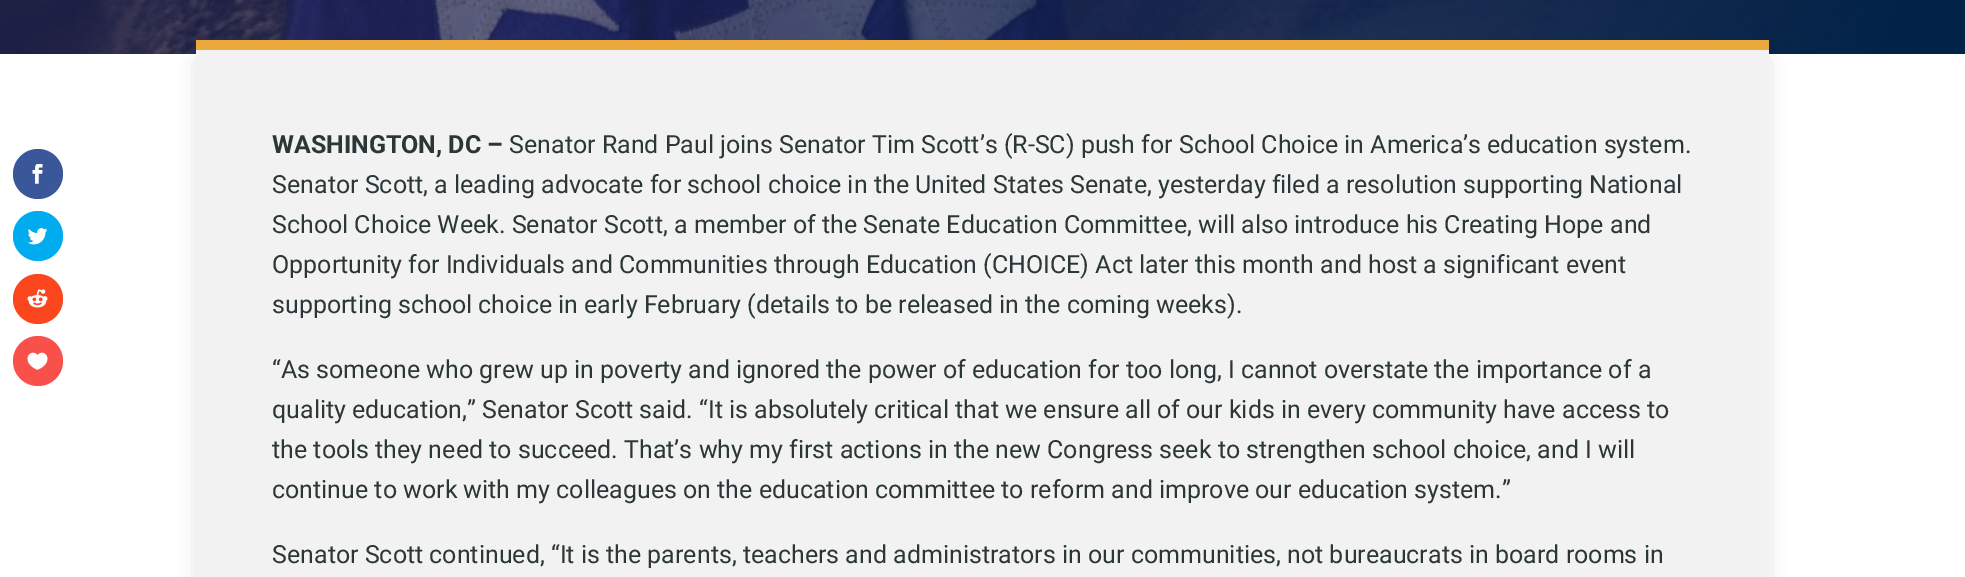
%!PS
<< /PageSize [1965 577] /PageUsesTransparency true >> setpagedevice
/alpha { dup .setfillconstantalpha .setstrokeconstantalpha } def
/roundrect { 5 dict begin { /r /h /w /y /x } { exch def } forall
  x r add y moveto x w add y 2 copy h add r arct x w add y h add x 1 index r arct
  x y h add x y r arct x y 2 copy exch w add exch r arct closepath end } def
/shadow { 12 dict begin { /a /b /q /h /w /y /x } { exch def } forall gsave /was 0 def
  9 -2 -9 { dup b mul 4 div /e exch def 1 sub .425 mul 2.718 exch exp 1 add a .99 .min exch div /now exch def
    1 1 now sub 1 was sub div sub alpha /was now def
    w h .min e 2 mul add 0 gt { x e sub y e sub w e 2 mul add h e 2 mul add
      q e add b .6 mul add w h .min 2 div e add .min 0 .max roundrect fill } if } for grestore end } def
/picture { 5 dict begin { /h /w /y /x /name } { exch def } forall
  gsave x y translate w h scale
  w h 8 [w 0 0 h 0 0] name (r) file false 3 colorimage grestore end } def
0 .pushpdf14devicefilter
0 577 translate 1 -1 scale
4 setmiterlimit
1 setgray
0 0 1965 577 rectfill
0.227 0.341 0.604 setrgbcolor
newpath 38 174 25 0 360 arc closepath fill
(img1.rgb) 32 164 11 20 picture
0 0.671 0.941 setrgbcolor
newpath 38 236 25 0 360 arc closepath fill
(img2.rgb) 27 228 21 17 picture
0.988 0.275 0.118 setrgbcolor
newpath 38 299 25 0 360 arc closepath fill
(img3.rgb) 27 289 21 19 picture
0.976 0.318 0.286 setrgbcolor
newpath 38 361 25 0 360 arc closepath fill
(img4.rgb) 27 352 21 18 picture
(img5.rgb) 0 0 1965 54 picture
0 setgray
204 63 1557 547 0 11 0.3 shadow
0.949 setgray
196 50 1573 527 rectfill
0.922 0.659 0.239 setrgbcolor
196 40 1573 10 rectfill
/Roboto-Bold [25 0 0 -25 0 0] selectfont
0.169 0.212 0.212 setrgbcolor
272 153 moveto (WASHINGTON, DC –) show
/Roboto-Regular [25 0 0 -25 0 0] selectfont
509 153 moveto (Senator Rand Paul joins Senator Tim Scott’s \(R-SC\) push for School Choice in America’s education system.) show
272 193 moveto (Senator Scott, a leading advocate for school choice in the United States Senate, yesterday filed a resolution supporting National) show
272 233 moveto (School Choice Week. Senator Scott, a member of the Senate Education Committee, will also introduce his Creating Hope and) show
272 273 moveto (Opportunity for Individuals and Communities through Education \(CHOICE\) Act later this month and host a significant event) show
272 313 moveto (supporting school choice in early February \(details to be released in the coming weeks\).) show
272 378 moveto (“As someone who grew up in poverty and ignored the power of education for too long, I cannot overstate the importance of a) show
272 418 moveto (quality education,” Senator Scott said. “It is absolutely critical that we ensure all of our kids in every community have access to) show
272 458 moveto (the tools they need to succeed. That’s why my first actions in the new Congress seek to strengthen school choice, and I will) show
272 498 moveto (continue to work with my colleagues on the education committee to reform and improve our education system.”) show
272 563 moveto (Senator Scott continued, “It is the parents, teachers and administrators in our communities, not bureaucrats in board rooms in) show
.poppdf14devicefilter showpage
